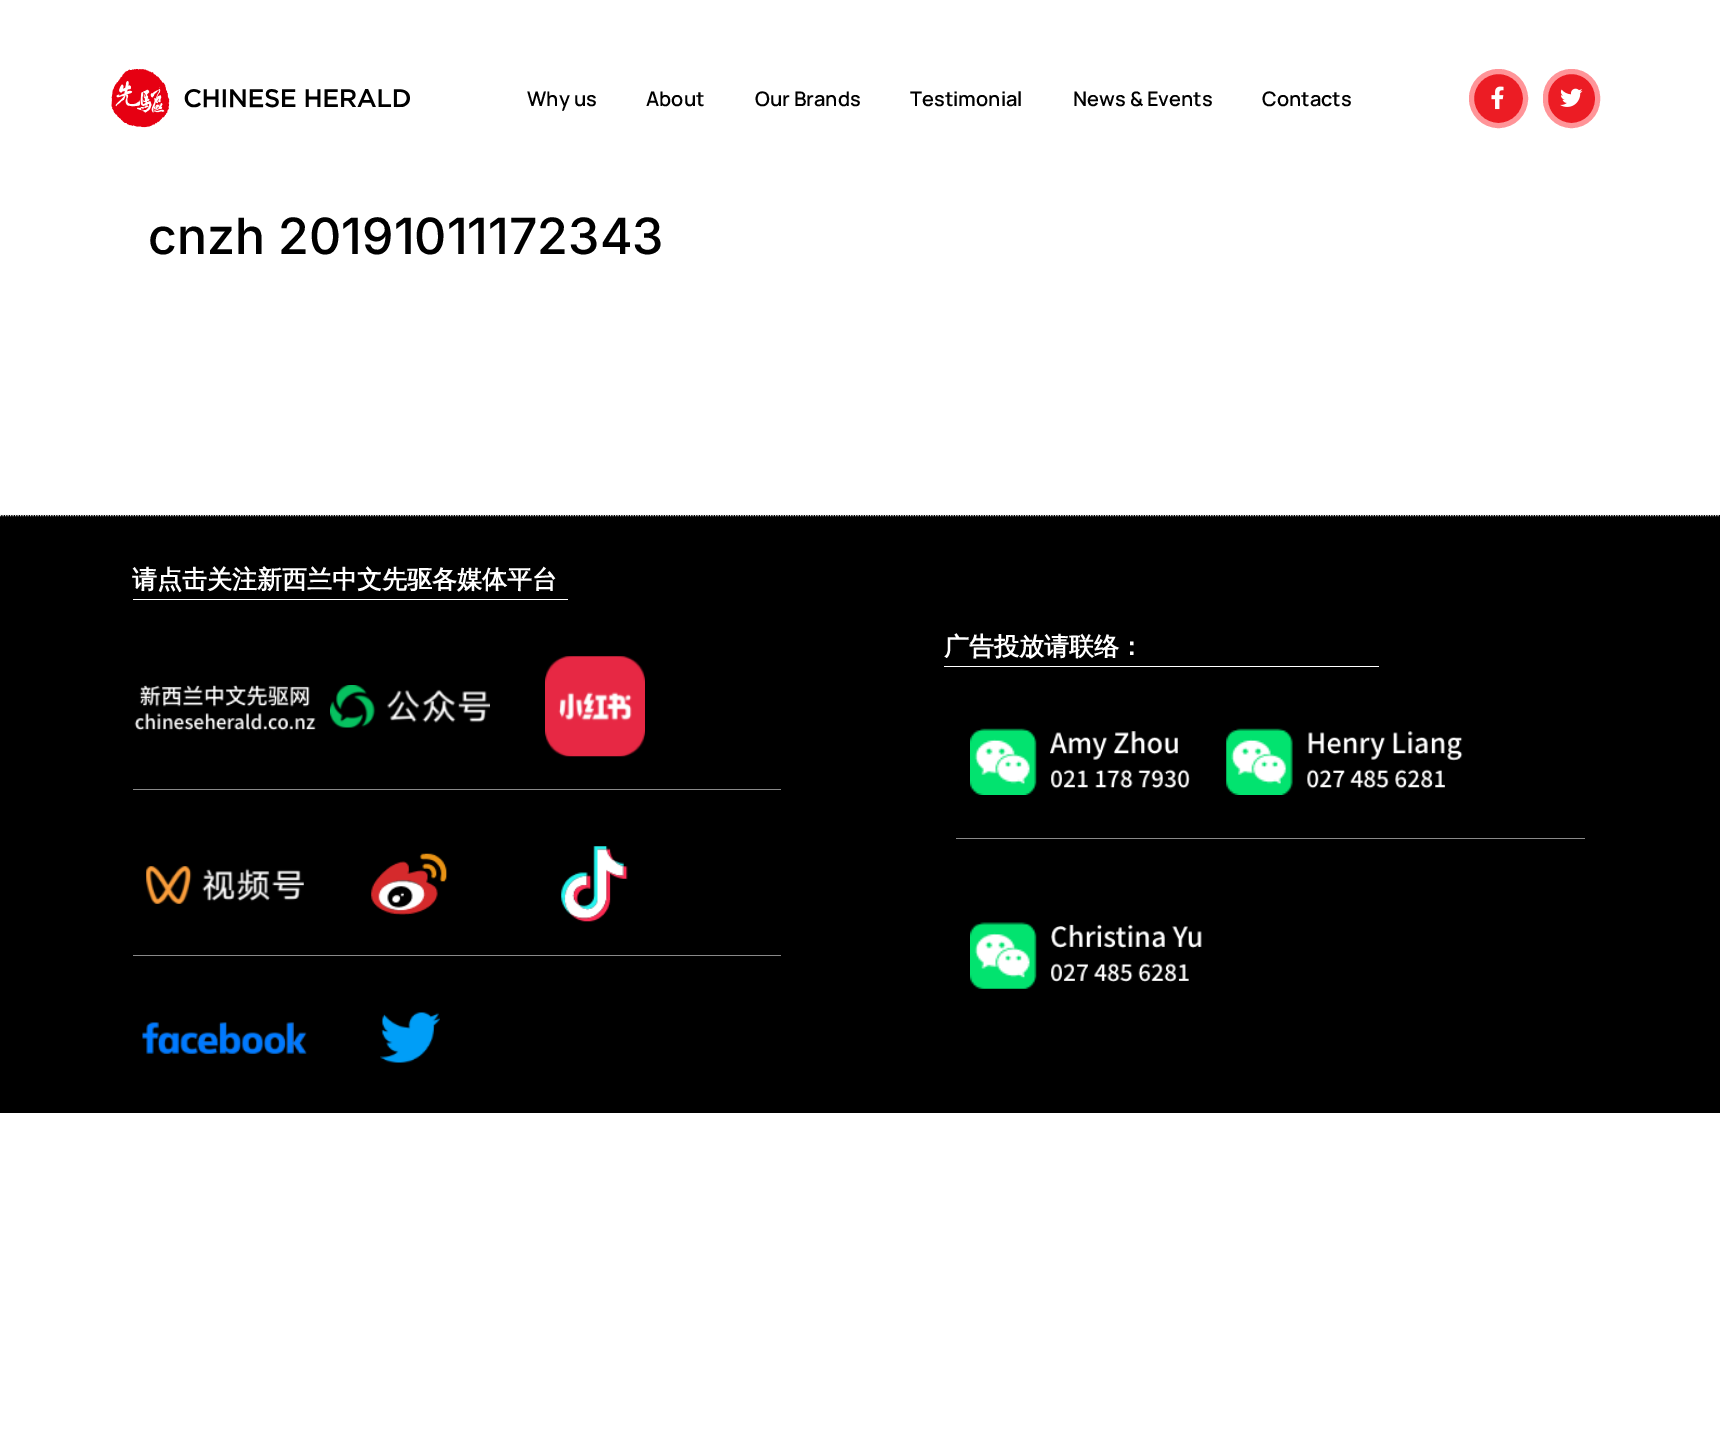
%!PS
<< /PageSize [1720 1444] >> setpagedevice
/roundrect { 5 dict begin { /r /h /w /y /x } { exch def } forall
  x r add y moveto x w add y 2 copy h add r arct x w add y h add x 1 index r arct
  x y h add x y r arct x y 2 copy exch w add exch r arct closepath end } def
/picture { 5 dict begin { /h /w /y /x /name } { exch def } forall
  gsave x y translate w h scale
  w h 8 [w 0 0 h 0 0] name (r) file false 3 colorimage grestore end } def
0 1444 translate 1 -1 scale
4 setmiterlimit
1 setgray
0 0 1720 1444 rectfill
(img1.rgb) 111 69 299 59 picture
/Manrope-SemiBold [20 0 0 -20 0 0] selectfont
0 setgray
527 106 moveto (Why us) show
646 106 moveto (About) show
755 106 moveto (Our Brands) show
910 106 moveto (Testimonial) show
1073 106 moveto (News & Events) show
1262 106 moveto (Contacts) show
0.925 0.11 0.141 setrgbcolor
newpath 1498.5 98.5 27 0 360 arc closepath gsave fill grestore
1 0.58 0.596 setrgbcolor
5 setlinewidth
stroke
(img2.rgb) 1491 86 13 24 picture
0.925 0.11 0.141 setrgbcolor
1545.5 71.5 52 54 26 roundrect gsave fill grestore
1 0.58 0.596 setrgbcolor
stroke
(img3.rgb) 1560 88 23 19 picture
/Inter-Medium [50 0 0 -50 0 0] selectfont
0 setgray
148 254 moveto (cnzh 20191011172343) show
0 515 1720 598 rectfill
0.839 setgray
1.2 setlinewidth
[1.25 1.25] 0 setdash
newpath 0 515.5 moveto 1720 515.5 lineto stroke
/WenQuanYiZenHei-Bold [25 0 0 -25 0 0] selectfont
1 setgray
132 588 moveto (请点击关注新西兰中文先驱各媒体平台) show
133 599 435 1 rectfill
(img4.rgb) 134 685 182 46 picture
(img5.rgb) 330 685 160 43 picture
(img6.rgb) 545 656 100 101 picture
0.537 setgray
133 789 648 1 rectfill
(img7.rgb) 146 866 158 38 picture
(img8.rgb) 371 853 77 62 picture
(img9.rgb) 561 846 67 76 picture
133 955 648 1 rectfill
(img10.rgb) 142 1022 165 32 picture
(img11.rgb) 380 1012 60 51 picture
1 setgray
944 655 moveto (广告投放请联络：) show
944 666 435 1 rectfill
(img12.rgb) 970 728 67 67 picture
(img13.rgb) 1050 731 140 58 picture
(img14.rgb) 1226 728 67 67 picture
(img15.rgb) 1307 731 156 58 picture
0.537 setgray
956 838 629 1 rectfill
(img16.rgb) 970 922 67 67 picture
(img17.rgb) 1051 924 151 58 picture
showpage
